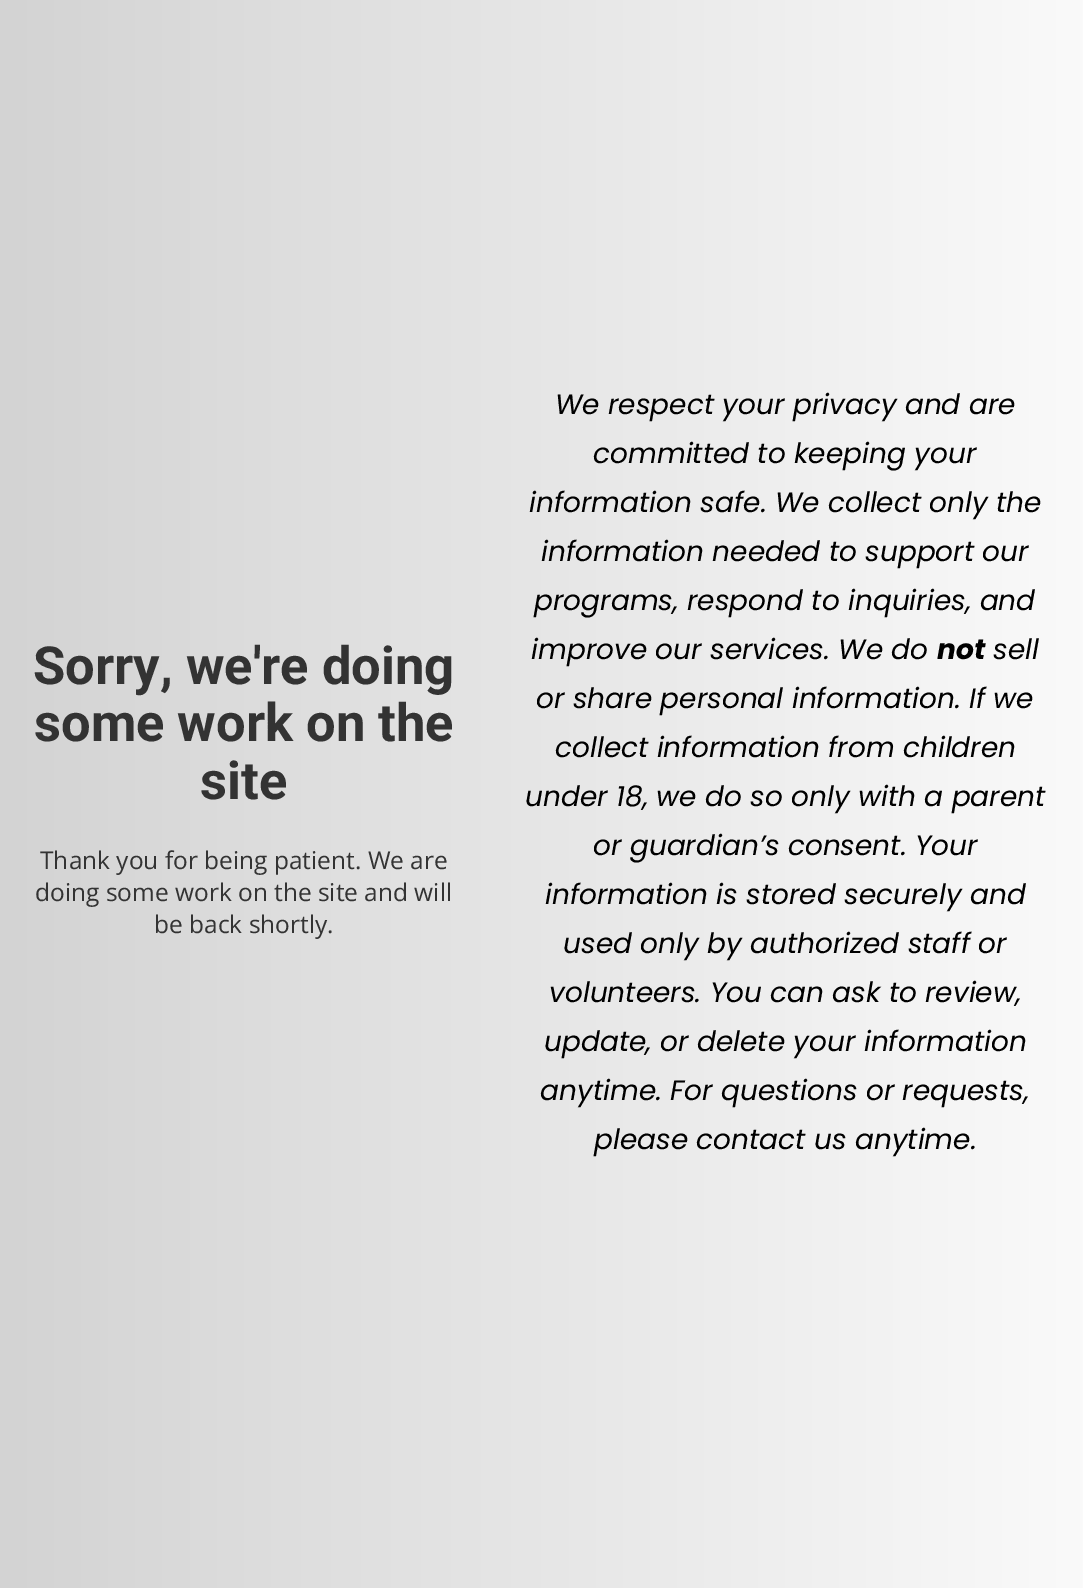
%!PS
<< /PageSize [1083 1588] >> setpagedevice
0 1588 translate 1 -1 scale
4 setmiterlimit
1 setgray
0 0 1083 1588 rectfill
gsave newpath 0 0 moveto 1083 0 lineto 1083 1588 lineto 0 1588 lineto closepath clip newpath
<< /ShadingType 2 /ColorSpace /DeviceRGB /Coords [0 795 1083 795] /Extend [true true] /Function << /FunctionType 2 /Domain [0 1] /C0 [0.827 0.827 0.827] /C1 [0.98 0.98 0.98] /N 1 >> >> shfill grestore
/Roboto-Bold [52.5 0 0 -52.5 0 0] selectfont
0.2 setgray
33 684 moveto (Sorry, we're doing) show
34 741 moveto (some work on the) show
200 799 moveto (site) show
/OpenSans-Regular [24.5 0 0 -24.5 0 0] selectfont
40 869 moveto (Thank you for being patient. We are) show
35 901 moveto (doing some work on the site and will) show
154 933 moveto (be back shortly.) show
/Poppins-Italic [28 0 0 -28 0 0] selectfont
0 setgray
555 414 moveto (We respect your privacy and are) show
593 463 moveto (committed to keeping your) show
529 512 moveto (information safe. We collect only the) show
541 561 moveto (information needed to support our) show
534 610 moveto (programs, respond to inquiries, and) show
531 659 moveto (improve our services. We do) show
/Poppins-BoldItalic [28 0 0 -28 0 0] selectfont
937 659 moveto (not) show
/Poppins-Italic [28 0 0 -28 0 0] selectfont
993 659 moveto (sell) show
536 708 moveto (or share personal information. If we) show
555 757 moveto (collect information from children) show
525 806 moveto (under 18, we do so only with a parent) show
593 855 moveto (or guardian’s consent. Your) show
545 904 moveto (information is stored securely and) show
563 953 moveto (used only by authorized staff or) show
549 1002 moveto (volunteers. You can ask to review,) show
544 1051 moveto (update, or delete your information) show
540 1100 moveto (anytime. For questions or requests,) show
594 1149 moveto (please contact us anytime.) show
showpage
